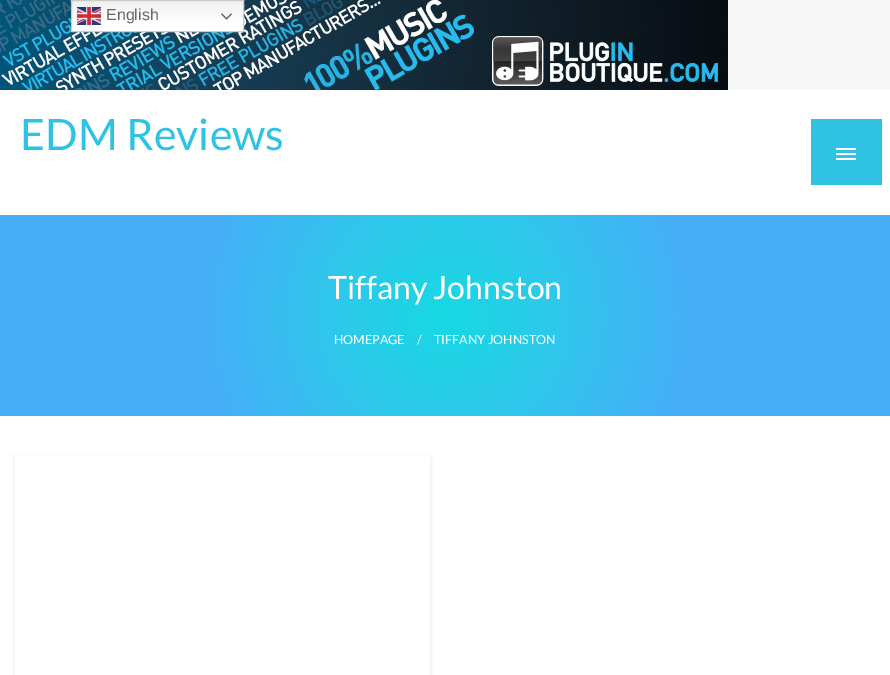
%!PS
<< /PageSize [890 675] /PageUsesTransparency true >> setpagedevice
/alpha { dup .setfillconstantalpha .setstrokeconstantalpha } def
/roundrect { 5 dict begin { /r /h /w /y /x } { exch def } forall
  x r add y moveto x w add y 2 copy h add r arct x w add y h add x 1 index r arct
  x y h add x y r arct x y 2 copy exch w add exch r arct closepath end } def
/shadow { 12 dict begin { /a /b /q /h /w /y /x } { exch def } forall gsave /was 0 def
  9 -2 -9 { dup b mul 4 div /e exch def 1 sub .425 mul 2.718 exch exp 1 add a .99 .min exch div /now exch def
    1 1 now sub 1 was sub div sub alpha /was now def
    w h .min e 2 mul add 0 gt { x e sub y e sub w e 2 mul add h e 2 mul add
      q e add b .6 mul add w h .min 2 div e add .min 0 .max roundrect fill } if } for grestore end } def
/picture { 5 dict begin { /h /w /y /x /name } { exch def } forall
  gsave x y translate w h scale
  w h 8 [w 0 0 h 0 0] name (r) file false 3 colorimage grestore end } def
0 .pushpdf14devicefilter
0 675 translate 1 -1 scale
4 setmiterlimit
0.969 setgray
0 0 890 675 rectfill
(img3.rgb) 0 0 728 90 picture
gsave newpath 72 1 moveto 243 1 lineto 243 31 lineto 72 31 lineto closepath clip newpath
<< /ShadingType 2 /ColorSpace /DeviceRGB /Coords [158 0 158 32] /Extend [true true] /Function << /FunctionType 3 /Domain [0 1] /Functions [<< /FunctionType 2 /Domain [0 1] /C0 [0.937 0.937 0.937] /C1 [1 1 1] /N 1 >> << /FunctionType 2 /Domain [0 1] /C0 [1 1 1] /C1 [1 1 1] /N 1 >>] /Bounds [0.7] /Encode [0 1 0 1] >> >> shfill grestore
0.8 setgray
71.5 0.5 172 31 rectstroke
(img1.rgb) 77 7 24 18 picture
/LiberationSans-Regular [16 0 0 -16 0 0] selectfont
0.4 setgray
106 20 moveto (English) show
(img2.rgb) 221 13 11 7 picture
1 setgray
0 90 890 125 rectfill
/Lato-Regular [43.25 0 0 -43.25 0 0] selectfont
0.184 0.761 0.89 setrgbcolor
20 150 moveto (EDM Reviews) show
811 119 71 66 rectfill
1 setgray
836 148 20 2 rectfill
836 153 20 2 rectfill
836 158 20 2 rectfill
0 416 890 259 rectfill
gsave newpath 0 215 moveto 890 215 lineto 890 416 lineto 0 416 lineto closepath clip newpath 445 316 translate 248 248 scale
<< /ShadingType 3 /ColorSpace /DeviceRGB /Coords [0 0 0 0 0 1] /Extend [true true] /Function << /FunctionType 3 /Domain [0 1] /Functions [<< /FunctionType 2 /Domain [0 1] /C0 [0.086 0.851 0.89] /C1 [0.188 0.78 0.925] /N 1 >> << /FunctionType 2 /Domain [0 1] /C0 [0.188 0.78 0.925] /C1 [0.275 0.682 0.969] /N 1 >>] /Bounds [0.47] /Encode [0 1 0 1] >> >> shfill grestore
/Lato-Regular [32 0 0 -32 0 0] selectfont
328 299 moveto (Tiffany Johnston) show
/Lato-Regular [12.5 0 0 -12.5 0 0] selectfont
334 344 moveto (HOMEPAGE) show
417 344 moveto (/) show
434 344 moveto (TIFFANY JOHNSTON) show
gsave
newpath 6 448 moveto 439 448 lineto 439 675 lineto 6 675 lineto closepath 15 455 moveto 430 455 lineto 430 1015 lineto 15 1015 lineto closepath eoclip newpath
0 setgray
15 457 415 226 0 2.5 0.1 shadow
grestore
.poppdf14devicefilter showpage
